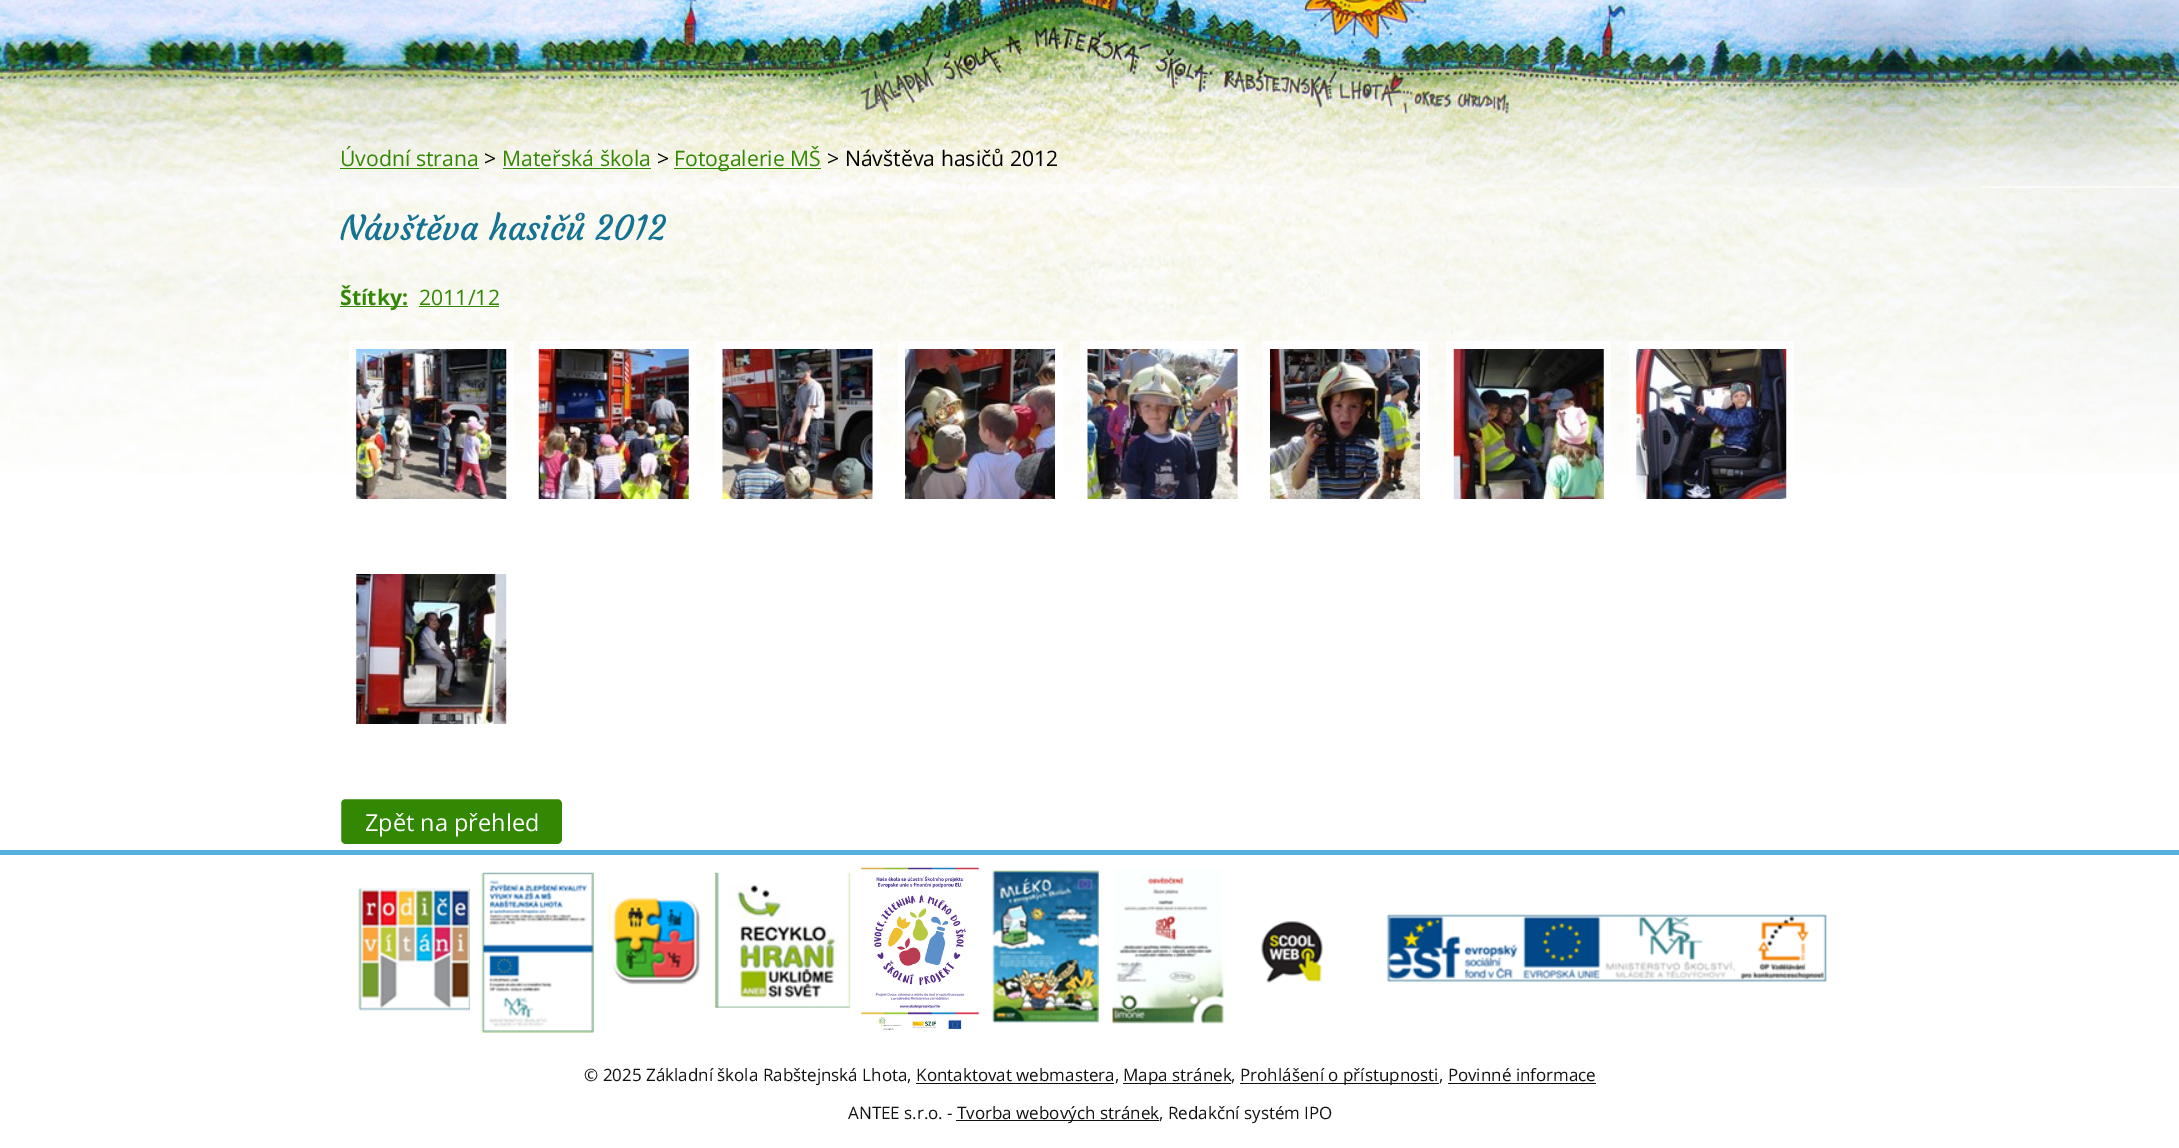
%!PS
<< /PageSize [2179 1148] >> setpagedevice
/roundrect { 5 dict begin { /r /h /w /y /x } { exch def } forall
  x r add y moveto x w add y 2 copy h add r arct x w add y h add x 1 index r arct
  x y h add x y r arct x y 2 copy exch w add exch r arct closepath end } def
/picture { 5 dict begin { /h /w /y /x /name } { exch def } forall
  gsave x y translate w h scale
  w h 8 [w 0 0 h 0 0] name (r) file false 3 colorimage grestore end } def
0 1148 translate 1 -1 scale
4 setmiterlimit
1 setgray
0 0 2179 1148 rectfill
(img1.rgb) 0 0 2179 474 picture
/OpenSans-Regular [21.25 0 0 -21.25 0 0] selectfont
0.196 0.529 0.012 setrgbcolor
340 166 moveto (Úvodní strana) show
340 168 139 1 rectfill
0 setgray
484 166 moveto (>) show
0.196 0.529 0.012 setrgbcolor
502 166 moveto (Mateřská škola) show
503 168 148 1 rectfill
0 setgray
657 166 moveto (>) show
0.196 0.529 0.012 setrgbcolor
674 168 147 1 rectfill
674 166 moveto (Fotogalerie MŠ) show
0 setgray
827 166 moveto (> Návštěva hasičů 2012) show
/Courgette-Regular [34 0 0 -34 0 0] selectfont
0.078 0.447 0.576 setrgbcolor
340 240 moveto (Návštěva hasičů 2012) show
0.196 0.529 0.012 setrgbcolor
340 306 68 1 rectfill
/OpenSans-Bold [21.25 0 0 -21.25 0 0] selectfont
340 305 moveto (Štítky:) show
/OpenSans-Regular [21.25 0 0 -21.25 0 0] selectfont
419 305 moveto (2011/12) show
419 306 80 1 rectfill
1 setgray
349 341 165 133 rectfill
(img2.rgb) 356 349 151 150 picture
531 341 165 133 rectfill
(img3.rgb) 538 349 151 150 picture
715 341 165 133 rectfill
(img4.rgb) 722 349 151 150 picture
898 341 165 133 rectfill
(img5.rgb) 905 349 150 150 picture
1080 341 165 133 rectfill
(img6.rgb) 1087 349 151 150 picture
1263 341 165 133 rectfill
(img7.rgb) 1270 349 150 150 picture
1446 341 165 133 rectfill
(img8.rgb) 1453 349 151 150 picture
1629 341 165 133 rectfill
(img9.rgb) 1636 349 151 150 picture
(img10.rgb) 356 574 151 150 picture
0.196 0.529 0.012 setrgbcolor
340.5 798.5 222 46 4.5 roundrect gsave fill grestore
1 setgray
stroke
/OpenSans-Regular [23.5 0 0 -23.5 0 0] selectfont
365 831 moveto (Zpět na přehled) show
0.337 0.698 0.867 setrgbcolor
0 850 2179 5 rectfill
(img11.rgb) 358 887 112 124 picture
(img12.rgb) 481 872 113 161 picture
(img13.rgb) 608 897 93 88 picture
(img14.rgb) 714 872 137 136 picture
(img15.rgb) 861 867 118 164 picture
(img16.rgb) 992 870 107 153 picture
(img17.rgb) 1112 868 112 156 picture
(img18.rgb) 1261 921 62 62 picture
(img19.rgb) 1386 914 441 68 picture
/OpenSans-Regular [17 0 0 -17 0 0] selectfont
0.071 0.071 0.067 setrgbcolor
584 1081 moveto (© 2025 Základní škola Rabštejnská Lhota, Kontaktovat webmastera,) show
1123 1083 108 1 rectfill
1123 1081 moveto (Mapa stránek,) show
1240 1083 199 1 rectfill
1240 1081 moveto (Prohlášení o přístupnosti, Povinné informace) show
1448 1083 148 1 rectfill
916 1083 198 1 rectfill
848 1119 moveto (ANTEE s.r.o. -) show
956 1120 203 1 rectfill
957 1119 moveto (Tvorba webových stránek, Redakční systém IPO) show
showpage
